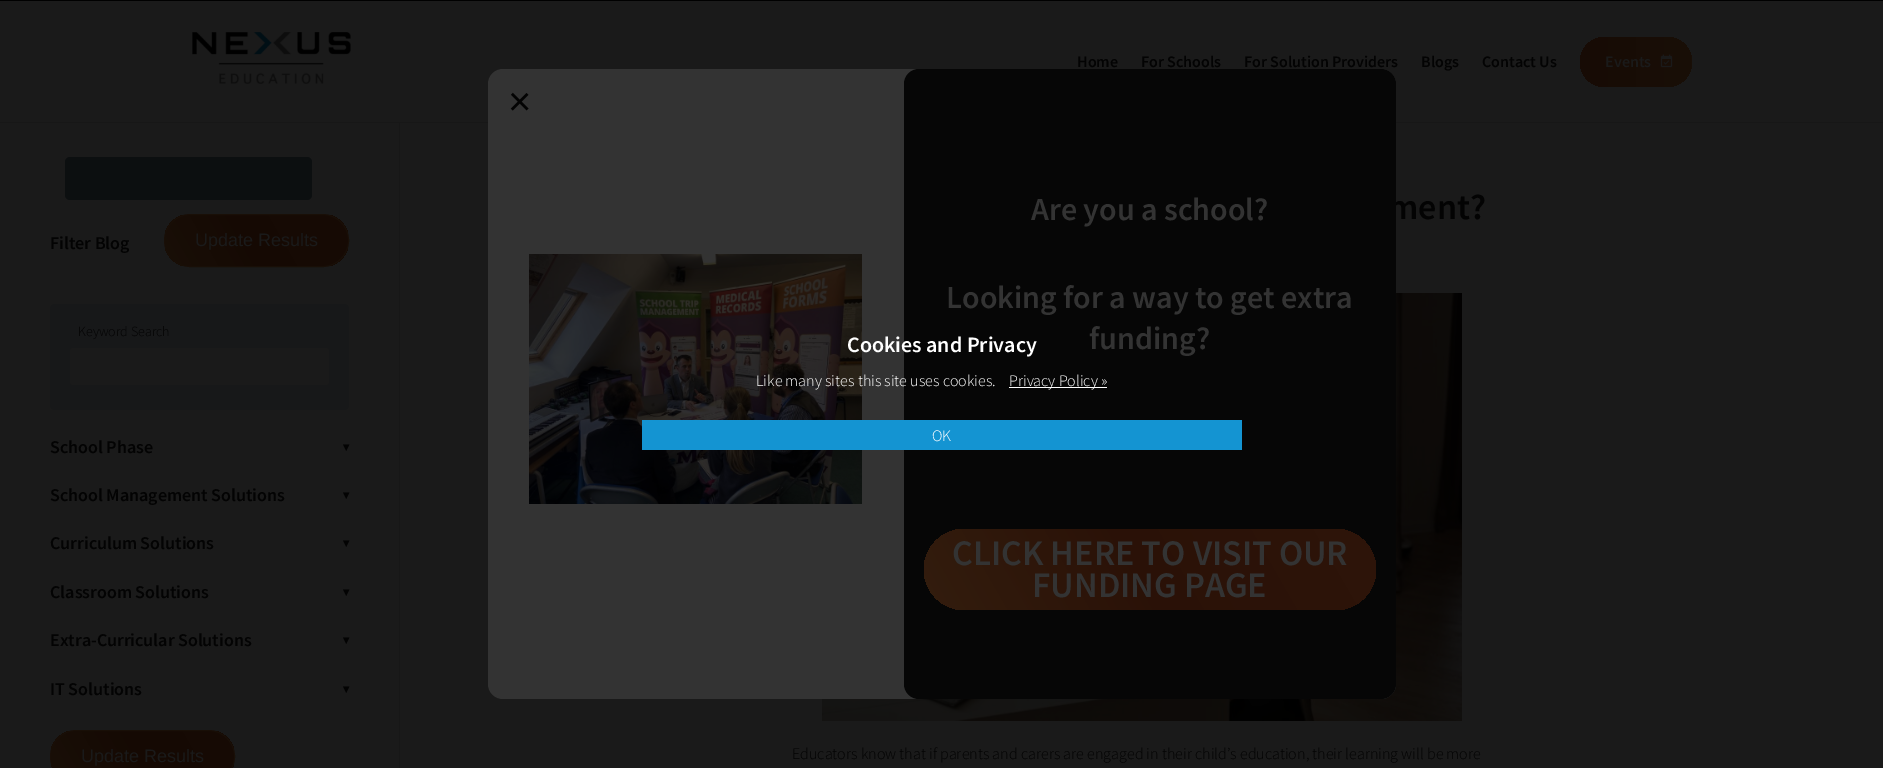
%!PS
<< /PageSize [1883 768] >> setpagedevice
/roundrect { 5 dict begin { /r /h /w /y /x } { exch def } forall
  x r add y moveto x w add y 2 copy h add r arct x w add y h add x 1 index r arct
  x y h add x y r arct x y 2 copy exch w add exch r arct closepath end } def
/picture { 5 dict begin { /h /w /y /x /name } { exch def } forall
  gsave x y translate w h scale
  w h 8 [w 0 0 h 0 0] name (r) file false 3 colorimage grestore end } def
0 768 translate 1 -1 scale
4 setmiterlimit
0.102 setgray
0 0 1883 768 rectfill
0.09 setgray
0 122 1883 1 rectfill
(img1.rgb) 192 32 159 52 picture
/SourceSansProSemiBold-SemiBold [16 0 0 -16 0 0] selectfont
0.012 setgray
1077 67 moveto (Home) show
1141 67 moveto (For Schools) show
1244 67 moveto (For Solution Providers) show
1421 67 moveto (Blogs) show
1482 67 moveto (Contact Us) show
gsave 1580 37 112 50 25 roundrect clip newpath
<< /ShadingType 2 /ColorSpace /DeviceRGB /Coords [1580 62 1692 62] /Extend [true true] /Function << /FunctionType 2 /Domain [0 1] /C0 [0.09 0.043 0.02] /C1 [0.098 0.059 0.027] /N 1 >> >> shfill grestore
0.102 setgray
1605 67 moveto (Events) show
(img2.rgb) 1660 54 13 14 picture
/SourceSansProSemiBold-SemiBold [36 0 0 -36 0 0] selectfont
0.012 setgray
1388 219 moveto (ment?) show
(img4.rgb) 822 293 640 428 picture
0.2 setgray
488 69 908 630 15 roundrect fill
/LiberationSans-Regular [40 0 0 -40 0 0] selectfont
0.012 setgray
508 115 moveto (×) show
(img3.rgb) 529 254 333 250 picture
0.024 setgray
904 69 492 630 15 roundrect fill
/SourceSansProSemiBold-SemiBold [32 0 0 -32 0 0] selectfont
0.2 setgray
1031 220 moveto (Are you a school?) show
946 308 moveto (Looking for a way to get extra) show
1089 349 moveto (funding?) show
gsave 924 529 452 81 40.5 roundrect clip newpath
<< /ShadingType 2 /ColorSpace /DeviceRGB /Coords [963 677 1337 462] /Extend [true true] /Function << /FunctionType 3 /Domain [0 1] /Functions [<< /FunctionType 2 /Domain [0 1] /C0 [0.2 0.114 0.055] /C1 [0.165 0.067 0.027] /N 1 >> << /FunctionType 2 /Domain [0 1] /C0 [0.165 0.067 0.027] /C1 [0.18 0.082 0.039] /N 1 >>] /Bounds [0.51] /Encode [0 1 0 1] >> >> shfill grestore
/SourceSansProSemiBold-SemiBold [36 0 0 -36 0 0] selectfont
952 565 moveto (CLICK HERE TO VISIT OUR) show
1032 597 moveto (FUNDING PAGE) show
0.09 setgray
399 123 1 645 rectfill
0.047 0.059 0.063 setrgbcolor
65 157 247 43 5 roundrect fill
/SourceSansProSemiBold-SemiBold [18 0 0 -18 0 0] selectfont
0.012 setgray
50 249 moveto (Filter Blog) show
gsave
164 214 185 53 26.5 roundrect clip newpath
gsave newpath 165 215 moveto 348 215 lineto 348 266 lineto 165 266 lineto closepath clip newpath
<< /ShadingType 2 /ColorSpace /DeviceRGB /Coords [177 286 336 195] /Extend [true true] /Function << /FunctionType 3 /Domain [0 1] /Functions [<< /FunctionType 2 /Domain [0 1] /C0 [0.098 0.059 0.027] /C1 [0.082 0.035 0.012] /N 1 >> << /FunctionType 2 /Domain [0 1] /C0 [0.082 0.035 0.012] /C1 [0.09 0.043 0.02] /N 1 >>] /Bounds [0.51] /Encode [0 1 0 1] >> >> shfill grestore
grestore
0.098 0.059 0.027 setrgbcolor
164.5 214.5 184 52 26 roundrect stroke
/LiberationSans-Regular [18 0 0 -18 0 0] selectfont
0.102 setgray
195 246 moveto (Update Results) show
0.09 0.094 0.098 setrgbcolor
50 304 299 106 5 roundrect fill
/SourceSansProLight-Light [14 0 0 -14 0 0] selectfont
0.012 setgray
78 336 moveto (Keyword Search) show
0.102 setgray
70 348 259 37 3 roundrect fill
/SourceSansProSemiBold-SemiBold [18 0 0 -18 0 0] selectfont
0.012 setgray
50 453 moveto (School Phase) show
/DejaVuSans-Bold [12 0 0 -12 0 0] selectfont
343 451 moveto (▾) show
/SourceSansProSemiBold-SemiBold [18 0 0 -18 0 0] selectfont
50 501 moveto (School Management Solutions) show
/DejaVuSans-Bold [12 0 0 -12 0 0] selectfont
343 499 moveto (▾) show
/SourceSansProSemiBold-SemiBold [18 0 0 -18 0 0] selectfont
50 549 moveto (Curriculum Solutions) show
/DejaVuSans-Bold [12 0 0 -12 0 0] selectfont
343 547 moveto (▾) show
/SourceSansProSemiBold-SemiBold [18 0 0 -18 0 0] selectfont
50 598 moveto (Classroom Solutions) show
/DejaVuSans-Bold [12 0 0 -12 0 0] selectfont
343 596 moveto (▾) show
/SourceSansProSemiBold-SemiBold [18 0 0 -18 0 0] selectfont
50 646 moveto (Extra-Curricular Solutions) show
/DejaVuSans-Bold [12 0 0 -12 0 0] selectfont
343 644 moveto (▾) show
/SourceSansProSemiBold-SemiBold [18 0 0 -18 0 0] selectfont
50 695 moveto (IT Solutions) show
/DejaVuSans-Bold [12 0 0 -12 0 0] selectfont
343 693 moveto (▾) show
gsave
50 730 185 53 26.5 roundrect clip newpath
gsave newpath 51 731 moveto 234 731 lineto 234 768 lineto 51 768 lineto closepath clip newpath
<< /ShadingType 2 /ColorSpace /DeviceRGB /Coords [63 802 222 711] /Extend [true true] /Function << /FunctionType 3 /Domain [0 1] /Functions [<< /FunctionType 2 /Domain [0 1] /C0 [0.098 0.059 0.027] /C1 [0.082 0.035 0.012] /N 1 >> << /FunctionType 2 /Domain [0 1] /C0 [0.082 0.035 0.012] /C1 [0.09 0.043 0.02] /N 1 >>] /Bounds [0.51] /Encode [0 1 0 1] >> >> shfill grestore
grestore
0.098 0.059 0.027 setrgbcolor
50.5 730.5 184 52 26 roundrect stroke
/LiberationSans-Regular [18 0 0 -18 0 0] selectfont
0.102 setgray
81 762 moveto (Update Results) show
/SourceSansProLight-Light [16 0 0 -16 0 0] selectfont
0.012 setgray
792 759 moveto (Educators know that if parents and carers are engaged in their child’s education, their learning will be more) show
0 setgray
0 0 1883 1 rectfill
/SourceSansProSemiBold-SemiBold [22 0 0 -22 0 0] selectfont
1 setgray
847 352 moveto (Cookies and Privacy) show
/SourceSansProLight-Light [16 0 0 -16 0 0] selectfont
756 386 moveto (Like many sites this site uses cookies.) show
1009 387 98 1 rectfill
1009 386 moveto (Privacy Policy ») show
0.078 0.58 0.824 setrgbcolor
642 420 600 30 rectfill
1 setgray
932 441 moveto (OK) show
showpage
